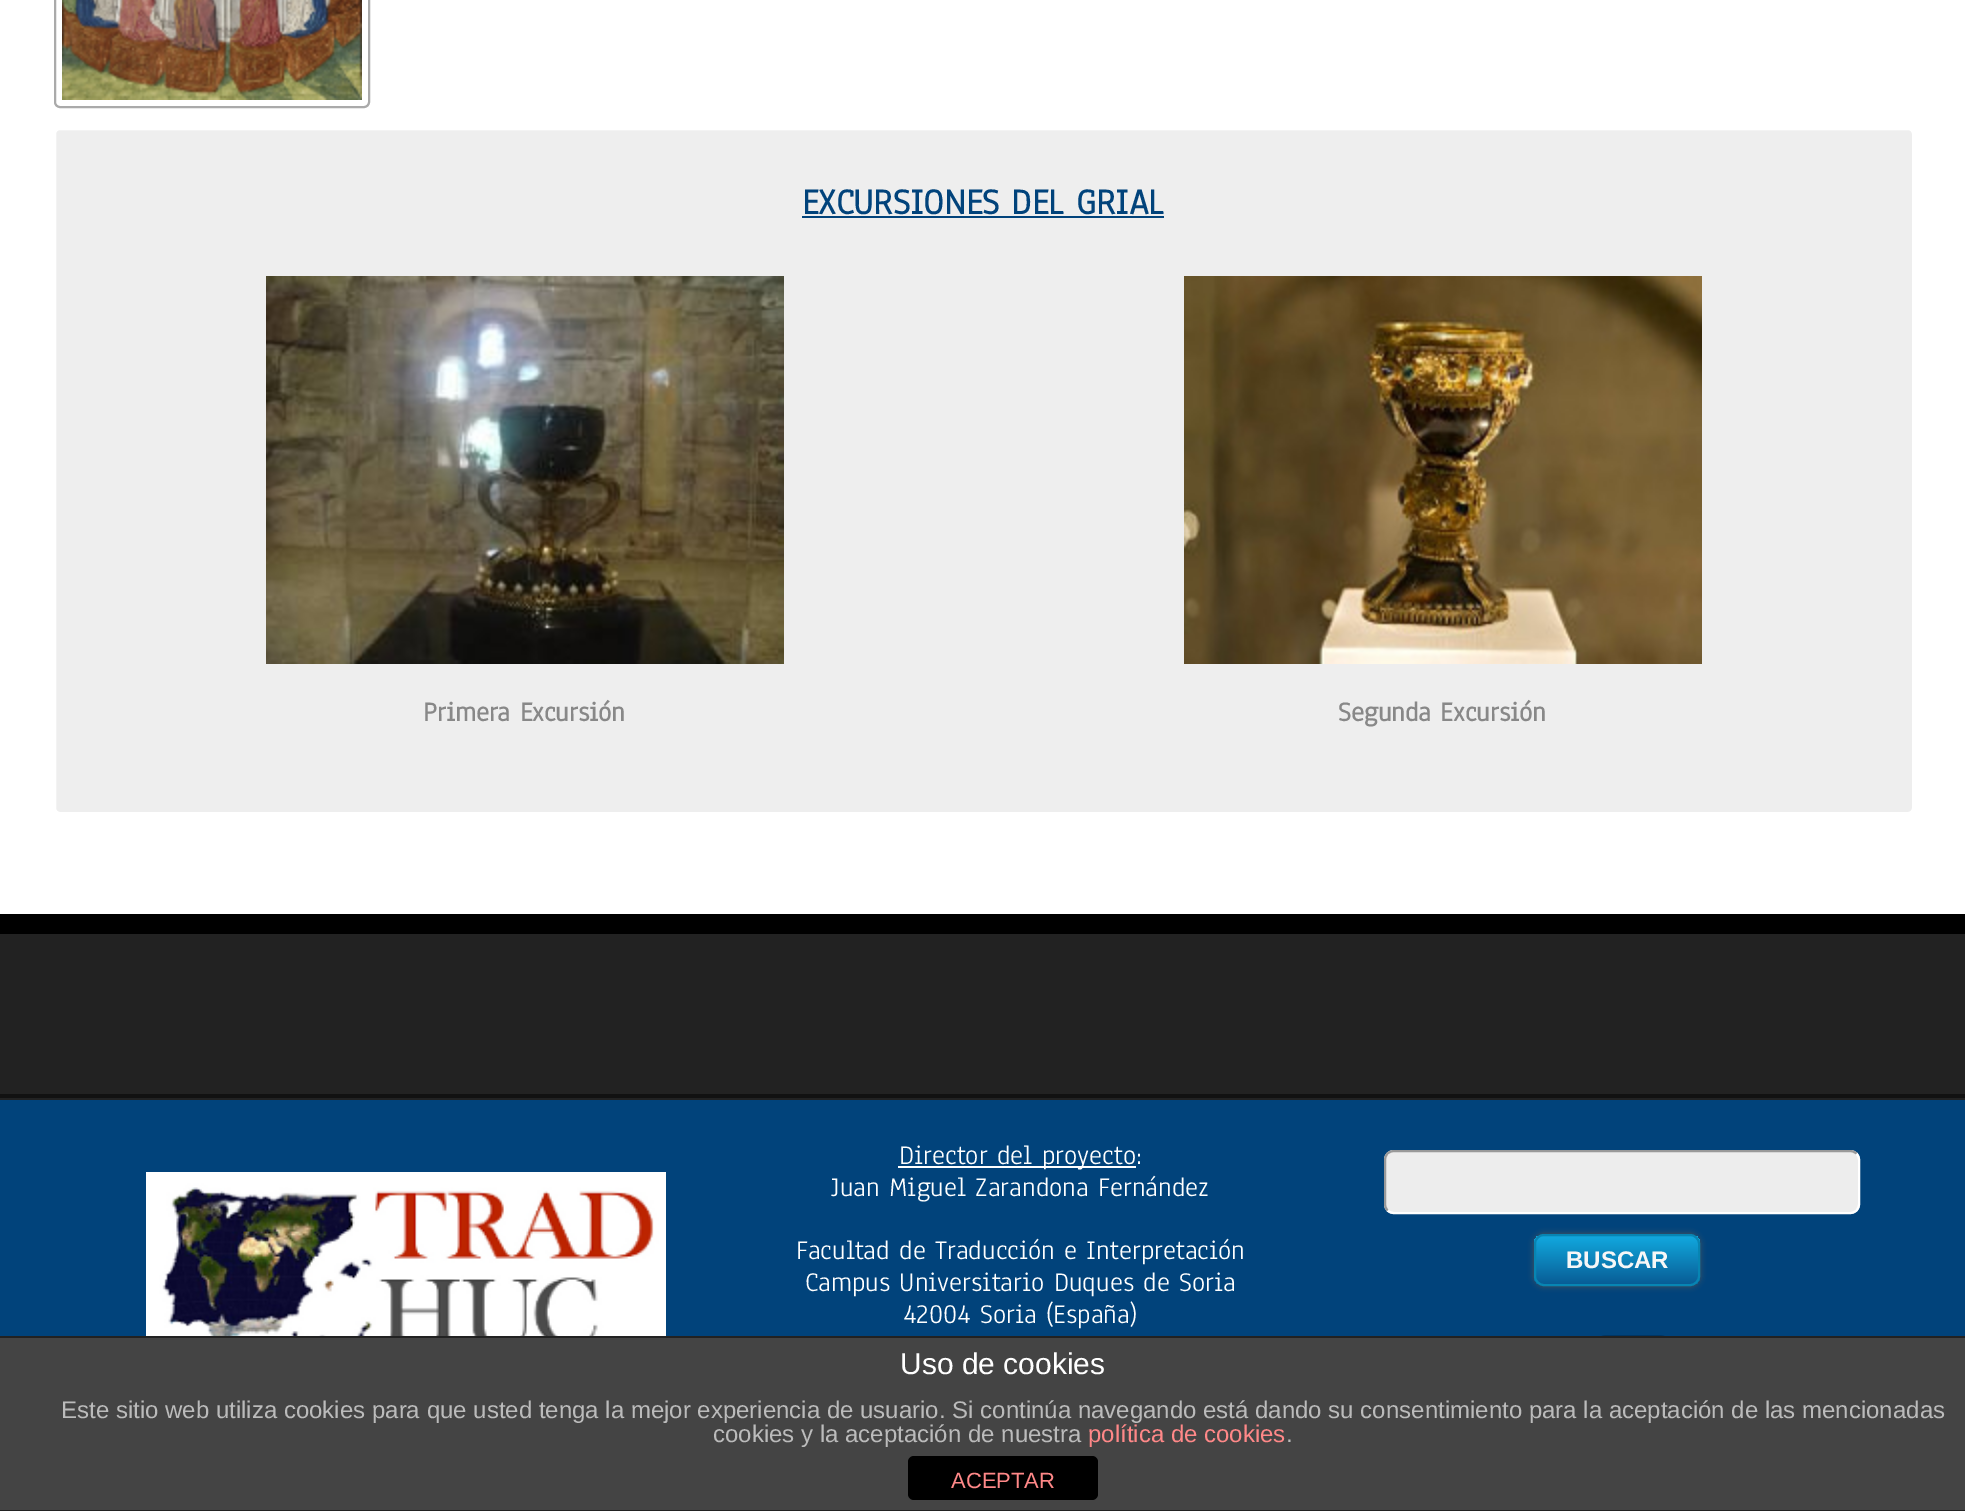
%!PS
<< /PageSize [1965 1511] /PageUsesTransparency true >> setpagedevice
/alpha { dup .setfillconstantalpha .setstrokeconstantalpha } def
/roundrect { 5 dict begin { /r /h /w /y /x } { exch def } forall
  x r add y moveto x w add y 2 copy h add r arct x w add y h add x 1 index r arct
  x y h add x y r arct x y 2 copy exch w add exch r arct closepath end } def
/shadow { 12 dict begin { /a /b /q /h /w /y /x } { exch def } forall gsave /was 0 def
  9 -2 -9 { dup b mul 4 div /e exch def 1 sub .425 mul 2.718 exch exp 1 add a .99 .min exch div /now exch def
    1 1 now sub 1 was sub div sub alpha /was now def
    w h .min e 2 mul add 0 gt { x e sub y e sub w e 2 mul add h e 2 mul add
      q e add b .6 mul add w h .min 2 div e add .min 0 .max roundrect fill } if } for grestore end } def
/picture { 5 dict begin { /h /w /y /x /name } { exch def } forall
  gsave x y translate w h scale
  w h 8 [w 0 0 h 0 0] name (r) file false 3 colorimage grestore end } def
0 .pushpdf14devicefilter
0 1511 translate 1 -1 scale
4 setmiterlimit
1 setgray
0 0 1965 1511 rectfill
0.667 setgray
2 setlinewidth
55 -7 314 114 5 roundrect stroke
(img1.rgb) 62 0 300 100 picture
0.933 setgray
55 129 1858 684 5 roundrect gsave fill grestore
1 setgray
stroke
/Anaheim-Bold [37.25 0 0 -37.25 0 0] selectfont
0.004 0.263 0.482 setrgbcolor
802 214 moveto (EXCURSIONES DEL GRIAL) show
802 216 362 2 rectfill
(img2.rgb) 266 276 518 388 picture
/Anaheim-Bold [28 0 0 -28 0 0] selectfont
0.533 setgray
423 721 moveto (Primera Excursión) show
(img3.rgb) 1184 276 518 388 picture
1338 721 moveto (Segunda Excursión) show
0.004 0.263 0.482 setrgbcolor
0 1100 1965 236 rectfill
0 setgray
0 914 1965 20 rectfill
0.067 setgray
0 1094 1965 4 rectfill
0.133 setgray
0 934 1965 160 rectfill
0 1098 1965 2 rectfill
(img4.rgb) 146 1172 520 164 picture
1 setgray
898 1166 238 2 rectfill
/Anaheim-Regular [28 0 0 -28 0 0] selectfont
899 1164 moveto (Director del proyecto:) show
831 1196 moveto (Juan Miguel Zarandona Fernández) show
796 1259 moveto (Facultad de Traducción e Interpretación) show
805 1291 moveto (Campus Universitario Duques de Soria) show
903 1323 moveto (42004 Soria \(España\)) show
0.929 setgray
1384 1150 476 64 10 roundrect fill
1 setgray
newpath 1856.5 1153.5 moveto 1858 1155.5 1859 1157.5 1859 1160 curveto 1859 1204 lineto 1859 1206.5 1858 1208.5 1856.5 1210.5 curveto 1854.5 1212 1852.5 1213 1850 1213 curveto 1394 1213 lineto 1391.5 1213 1389.5 1212 1387.5 1210.5 curveto stroke
0.6 setgray
newpath 1387.5 1210.5 moveto 1386 1208.5 1385 1206.5 1385 1204 curveto 1385 1160 lineto 1385 1157.5 1386 1155.5 1387.5 1153.5 curveto 1389.5 1152 1391.5 1151 1394 1151 curveto 1850 1151 lineto 1852.5 1151 1854.5 1152 1856.5 1153.5 curveto stroke
0.333 setgray
1534 1234 166 52 10 3 1 shadow
gsave
1534 1234 166 52 10 roundrect clip newpath
gsave newpath 1534 1236 moveto 1700 1236 lineto 1700 1284 lineto 1534 1284 lineto closepath clip newpath
<< /ShadingType 2 /ColorSpace /DeviceRGB /Coords [1536 1236 1536 1284] /Extend [true true] /Function << /FunctionType 3 /Domain [0 1] /Functions [<< /FunctionType 2 /Domain [0 1] /C0 [0.067 0.647 0.859] /C1 [0.067 0.647 0.859] /N 1 >> << /FunctionType 2 /Domain [0 1] /C0 [0.067 0.647 0.859] /C1 [0.031 0.365 0.588] /N 1 >>] /Bounds [0.05] /Encode [0 1 0 1] >> >> shfill grestore
grestore
0.027 0.522 0.702 setrgbcolor
1535 1235 164 50 9 roundrect stroke
/LiberationSans-Bold [24 0 0 -24 0 0] selectfont
0.969 setgray
1566 1268 moveto (BUSCAR) show
(img5.rgb) 1601 1335 64 1 picture
0.267 setgray
0 1338 1965 172 rectfill
0.133 setgray
0 1336 1965 2 rectfill
0 1510 1965 1 rectfill
/LiberationSans-Regular [30 0 0 -30 0 0] selectfont
1 setgray
900 1374 moveto (Uso de cookies) show
/LiberationSans-Regular [24 0 0 -24 0 0] selectfont
0.733 setgray
61 1418 moveto (Este sitio web utiliza cookies para que usted tenga la mejor experiencia de usuario. Si continúa navegando está dando su consentimiento para la aceptación de las mencionadas) show
713 1442 moveto (cookies y la aceptación de nuestra) show
1 0.533 0.533 setrgbcolor
1088 1442 moveto (política de cookies) show
0.733 setgray
1286 1442 moveto (.) show
0 setgray
908 1456 190 44 6 roundrect fill
/LiberationSans-Regular [22 0 0 -22 0 0] selectfont
1 0.533 0.533 setrgbcolor
951 1488 moveto (ACEPTAR) show
.poppdf14devicefilter showpage
